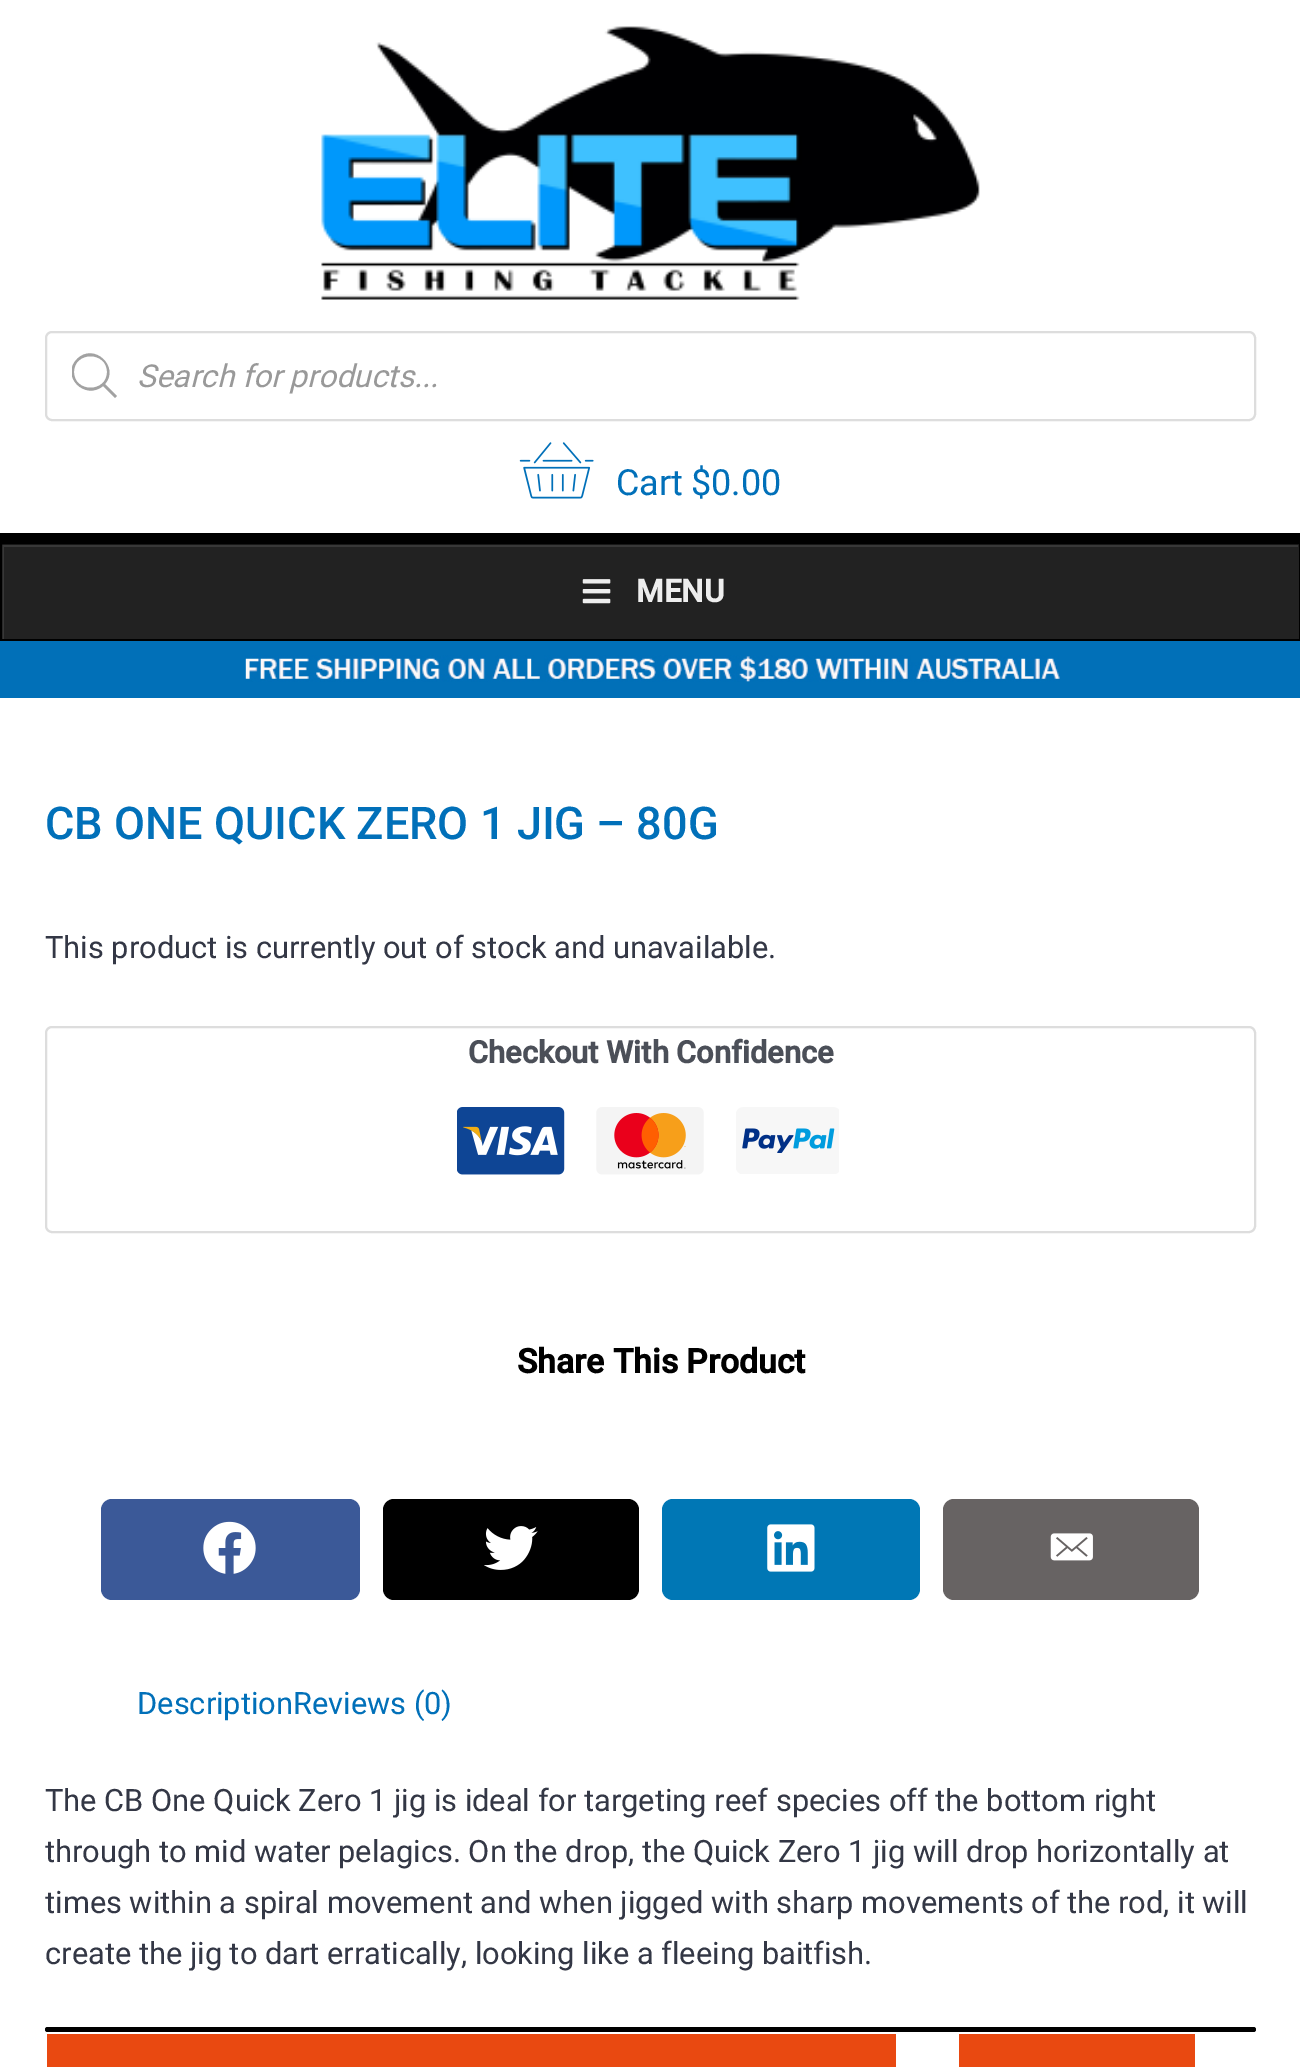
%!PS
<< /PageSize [1300 2067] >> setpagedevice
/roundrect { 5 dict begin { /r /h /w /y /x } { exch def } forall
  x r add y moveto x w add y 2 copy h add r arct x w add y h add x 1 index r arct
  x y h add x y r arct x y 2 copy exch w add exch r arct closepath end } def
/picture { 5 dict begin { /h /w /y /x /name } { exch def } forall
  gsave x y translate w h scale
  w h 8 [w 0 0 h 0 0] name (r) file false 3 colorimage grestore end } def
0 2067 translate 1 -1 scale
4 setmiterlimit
1 setgray
0 0 1300 2067 rectfill
0 setgray
0 533 1300 9 rectfill
(img1.rgb) 321 26 659 274 picture
0.867 setgray
2 setlinewidth
46 332 1209 88 6 roundrect stroke
gsave
72 353 45 45 rectclip
0.635 setgray
newpath 117 396 moveto 105 384 lineto 120 367 94 342 77 359 curveto 60 376 85 401 103 386 curveto 115 398 lineto closepath 74 372 moveto 74 351 107 351 107 372 curveto 107 393 74 393 74 372 curveto closepath fill
grestore
/Roboto-Italic [31.5 0 0 -31.5 0 0] selectfont
0.6 setgray
137 387 moveto (Search for products...) show
(img2.rgb) 519 442 75 57 picture
/Roboto-Regular [36 0 0 -36 0 0] selectfont
0.004 0.439 0.725 setrgbcolor
616 495 moveto (Cart) show
691 495 moveto ($0.00) show
0.133 setgray
2 544 1297 95 rectfill
gsave
2 545 1296 94 rectclip
0.22 setgray
newpath -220 322 moveto 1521 322 lineto 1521 862 lineto -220 862 lineto closepath 4 547 moveto 1300 547 lineto 1300 641 lineto 4 641 lineto closepath eofill
grestore
0 setgray
1 543 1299 97 rectstroke
(img3.rgb) 582 579 29 25 picture
/Roboto-Bold [31.5 0 0 -31.5 0 0] selectfont
0.933 setgray
636 602 moveto (MENU) show
0.004 0.439 0.722 setrgbcolor
0 641 1300 57 rectfill
(img4.rgb) 245 655 815 27 picture
/Roboto-Medium [45.1 0 0 -45.1 0 0] selectfont
0.004 0.439 0.725 setrgbcolor
45 839 moveto (CB ONE QUICK ZERO 1 JIG – 80G) show
/Roboto-Regular [30.8 0 0 -30.8 0 0] selectfont
0.2 0.216 0.271 setrgbcolor
45 958 moveto (This product is currently out of stock and unavailable.) show
0.867 setgray
46 1027 1209 205 6 roundrect stroke
/Roboto-Bold [30.8 0 0 -30.8 0 0] selectfont
0.294 0.31 0.345 setrgbcolor
468 1063 moveto (Checkout With Confidence) show
(img5.rgb) 457 1107 108 68 picture
(img6.rgb) 596 1107 108 68 picture
(img7.rgb) 736 1107 103 67 picture
/Roboto-Bold [33.75 0 0 -33.75 0 0] selectfont
0 setgray
517 1373 moveto (Share This Product) show
0.231 0.349 0.596 setrgbcolor
101 1499 259 101 11 roundrect fill
(img8.rgb) 203 1521 53 53 picture
0 setgray
383 1499 256 101 11 roundrect fill
(img9.rgb) 484 1526 54 44 picture
0 0.467 0.71 setrgbcolor
662 1499 258 101 11 roundrect fill
(img10.rgb) 767 1524 48 48 picture
0.404 0.388 0.388 setrgbcolor
943 1499 256 101 11 roundrect fill
(img11.rgb) 1050 1533 43 28 picture
/Roboto-Regular [30.8 0 0 -30.8 0 0] selectfont
0.004 0.439 0.725 setrgbcolor
137 1714 moveto (DescriptionReviews \(0\)) show
0.2 0.216 0.271 setrgbcolor
45 1811 moveto (The CB One Quick Zero 1 jig is ideal for targeting reef species off the bottom right) show
45 1862 moveto (through to mid water pelagics. On the drop, the Quick Zero 1 jig will drop horizontally at) show
45 1913 moveto (times within a spiral movement and when jigged with sharp movements of the rod, it will) show
45 1964 moveto (create the jig to dart erratically, looking like a fleeing baitfish.) show
0 setgray
45 2027 1211 5 2.5 roundrect fill
0.914 0.286 0.067 setrgbcolor
47 2034 849 33 rectfill
959 2034 236 33 rectfill
showpage
